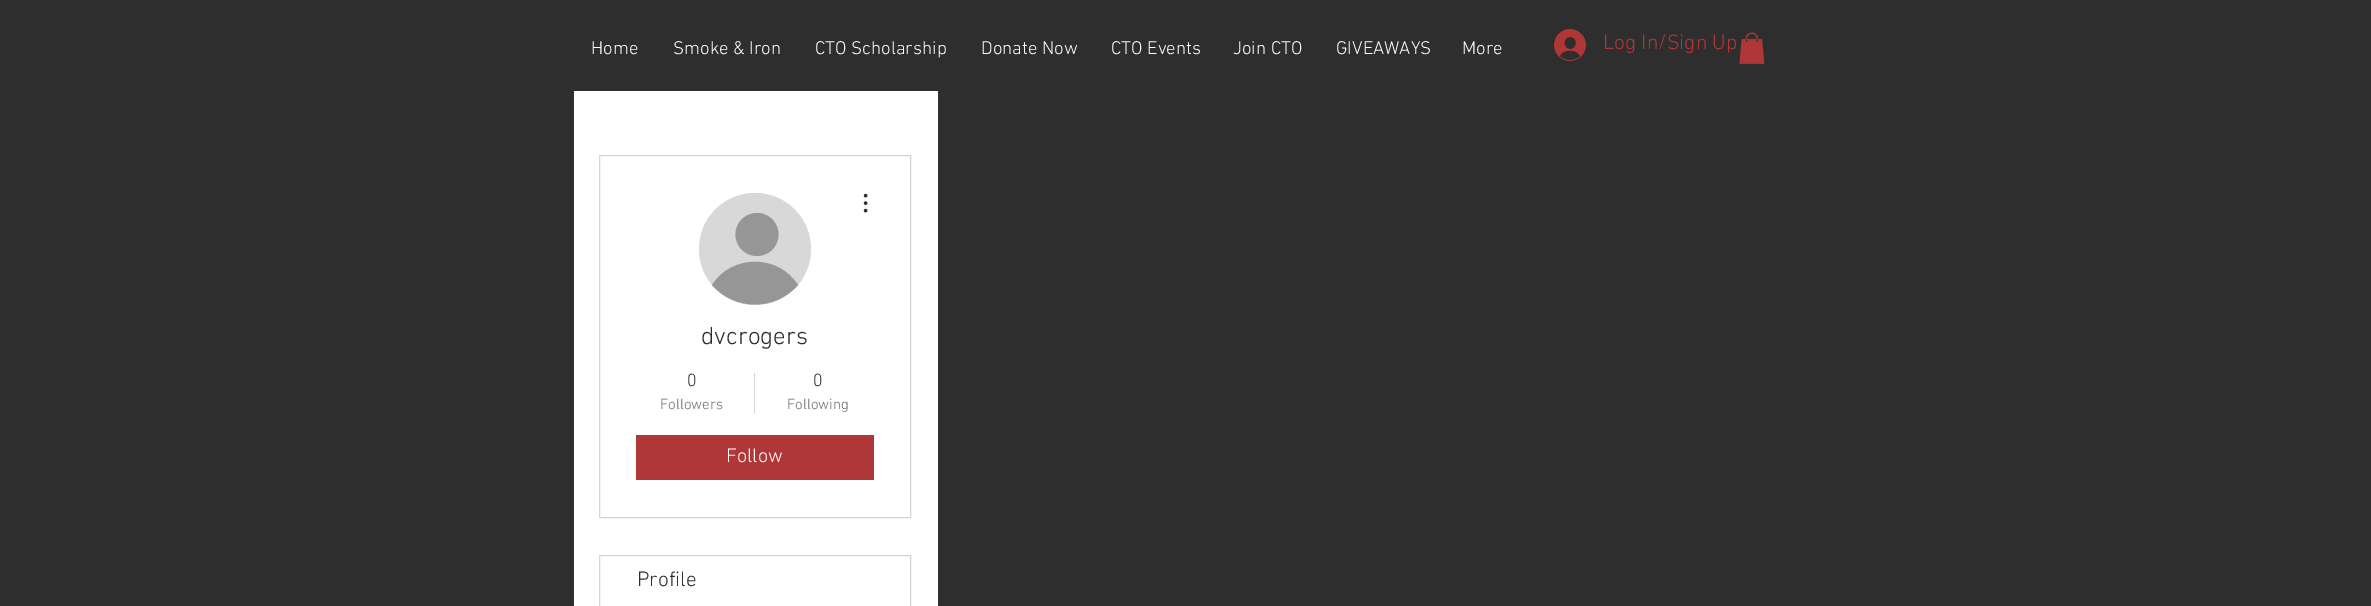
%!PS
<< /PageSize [2371 606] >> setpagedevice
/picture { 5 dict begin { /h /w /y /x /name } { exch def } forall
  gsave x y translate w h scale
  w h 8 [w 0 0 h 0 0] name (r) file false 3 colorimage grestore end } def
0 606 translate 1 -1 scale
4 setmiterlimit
0.184 0.18 0.18 setrgbcolor
0 0 2371 606 rectfill
/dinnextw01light-Light [18.75 0 0 -18.75 0 0] selectfont
1 setgray
591 54 moveto (Home) show
673 54 moveto (Smoke & Iron) show
815 54 moveto (CTO Scholarship) show
981 54 moveto (Donate Now) show
1111 54 moveto (CTO Events) show
1233 54 moveto (Join CTO) show
1336 54 moveto (GIVEAWAYS) show
1462 54 moveto (More) show
(img1.rgb) 1554 29 32 32 picture
/dinnextw01light-Light [21.25 0 0 -21.25 0 0] selectfont
0.69 0.216 0.216 setrgbcolor
1603 49 moveto (Log In/Sign Up) show
(img2.rgb) 1739 32 26 32 picture
1 setgray
574 91 364 515 rectfill
0.835 setgray
599.5 155.5 311 362 rectstroke
0.847 setgray
newpath 755 249 56 0 360 arc closepath fill
0.588 setgray
newpath 757 234.5 21.5 0 360 arc closepath fill
newpath 798 285 moveto 775 311 735 311 712 285 curveto 732 254 778 254 798 285 curveto closepath fill
(img3.rgb) 863 193 5 20 picture
/dinnextw01light-Light [25 0 0 -25 0 0] selectfont
0.184 0.18 0.18 setrgbcolor
701 344 moveto (dvcrogers) show
/dinnextw01light-Light [18 0 0 -18 0 0] selectfont
687 386 moveto (0) show
/dinnextw01light-Light [15 0 0 -15 0 0] selectfont
0.427 setgray
660 409 moveto (Followers) show
0.835 setgray
754 373 1 40 rectfill
/dinnextw01light-Light [18 0 0 -18 0 0] selectfont
0.184 0.18 0.18 setrgbcolor
813 386 moveto (0) show
/dinnextw01light-Light [15 0 0 -15 0 0] selectfont
0.427 setgray
787 409 moveto (Following) show
0.69 0.216 0.216 setrgbcolor
636 435 238 45 rectfill
/dinnextw01light-Light [20 0 0 -20 0 0] selectfont
1 setgray
726 462 moveto (Follow) show
0.835 setgray
599.5 555.5 311 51 rectstroke
/dinnextw01light-Light [21.25 0 0 -21.25 0 0] selectfont
0.184 0.18 0.18 setrgbcolor
637 586 moveto (Profile) show
showpage
